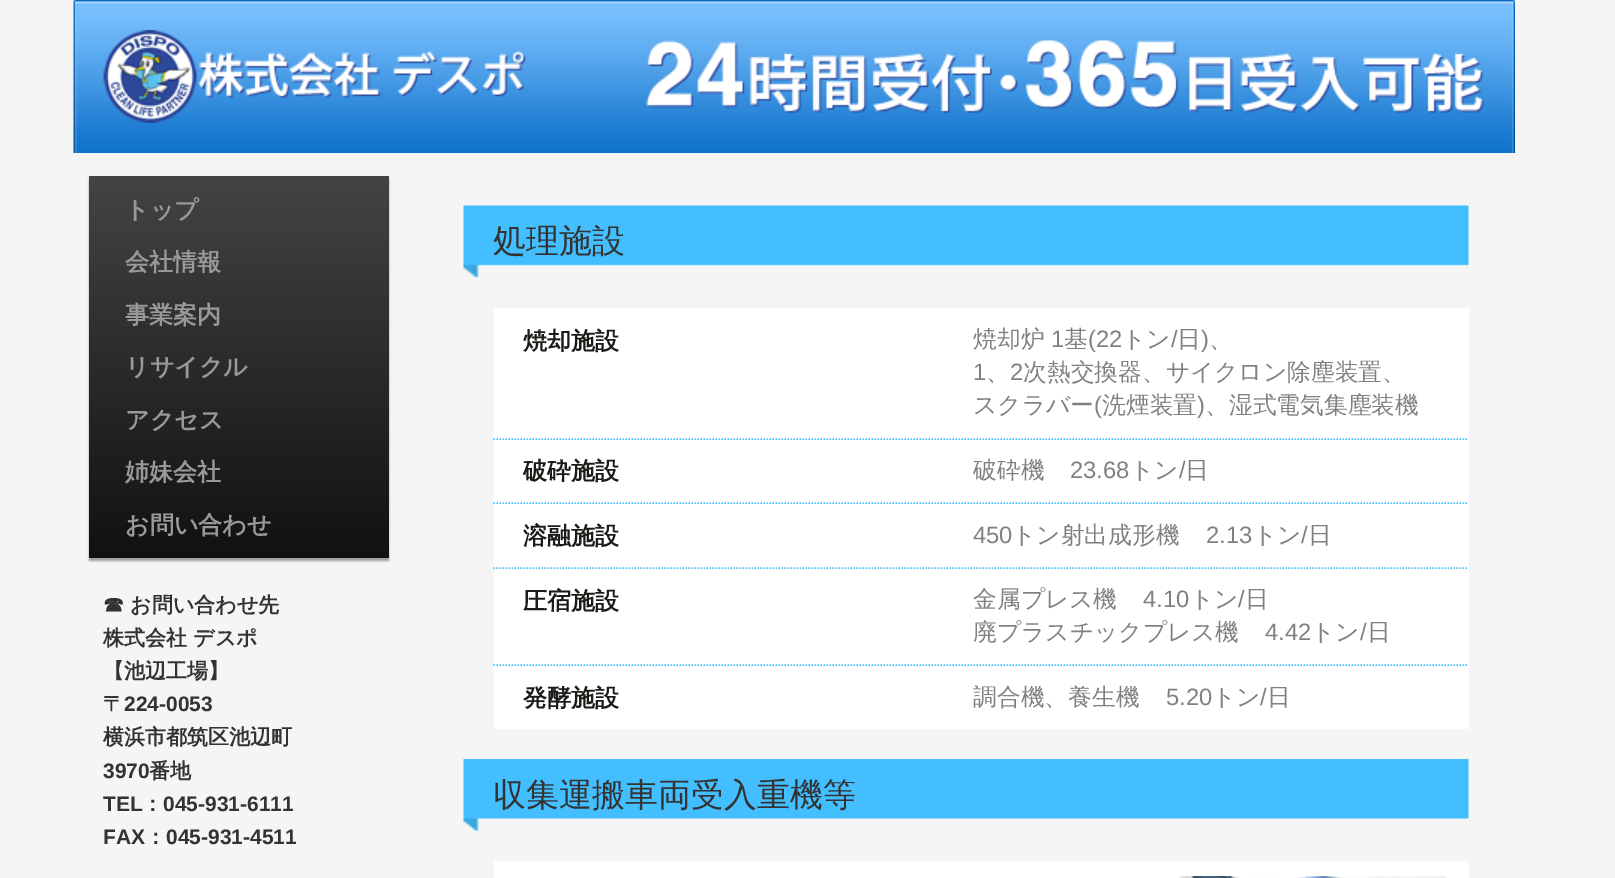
%!PS
<< /PageSize [1615 878] /PageUsesTransparency true >> setpagedevice
/alpha { dup .setfillconstantalpha .setstrokeconstantalpha } def
/roundrect { 5 dict begin { /r /h /w /y /x } { exch def } forall
  x r add y moveto x w add y 2 copy h add r arct x w add y h add x 1 index r arct
  x y h add x y r arct x y 2 copy exch w add exch r arct closepath end } def
/shadow { 12 dict begin { /a /b /q /h /w /y /x } { exch def } forall gsave /was 0 def
  9 -2 -9 { dup b mul 4 div /e exch def 1 sub .425 mul 2.718 exch exp 1 add a .99 .min exch div /now exch def
    1 1 now sub 1 was sub div sub alpha /was now def
    w h .min e 2 mul add 0 gt { x e sub y e sub w e 2 mul add h e 2 mul add
      q e add b .6 mul add w h .min 2 div e add .min 0 .max roundrect fill } if } for grestore end } def
/picture { 5 dict begin { /h /w /y /x /name } { exch def } forall
  gsave x y translate w h scale
  w h 8 [w 0 0 h 0 0] name (r) file false 3 colorimage grestore end } def
0 .pushpdf14devicefilter
0 878 translate 1 -1 scale
4 setmiterlimit
0.961 setgray
0 0 1615 878 rectfill
(img1.rgb) 73 0 1442 153 picture
(img2.rgb) 103 30 423 93 picture
(img3.rgb) 646 40 838 73 picture
0.612 setgray
89 179 300 382 0 1 1 shadow
gsave newpath 89 176 moveto 389 176 lineto 389 558 lineto 89 558 lineto closepath clip newpath
<< /ShadingType 2 /ColorSpace /DeviceRGB /Coords [89 558 89 176] /Extend [true true] /Function << /FunctionType 2 /Domain [0 1] /C0 [0.067 0.067 0.067] /C1 [0.267 0.267 0.267] /N 1 >> >> shfill grestore
/WenQuanYiZenHei-Bold [24 0 0 -24 0 0] selectfont
0.6 setgray
125 218 moveto (トップ) show
125 270 moveto (会社情報) show
125 323 moveto (事業案内) show
125 375 moveto (リサイクル) show
125 428 moveto (アクセス) show
125 480 moveto (姉妹会社) show
125 533 moveto (お問い合わせ) show
/WenQuanYiZenHei-Bold [21 0 0 -21 0 0] selectfont
0.2 setgray
103 612 moveto (☎ お問い合わせ先) show
103 645 moveto (株式会社 デスポ) show
103 678 moveto (【池辺工場】) show
103 711 moveto (〒) show
/LiberationSans-Bold [21 0 0 -21 0 0] selectfont
124 711 moveto (224-0053) show
/WenQuanYiZenHei-Bold [21 0 0 -21 0 0] selectfont
103 744 moveto (横浜市都筑区池辺町) show
/LiberationSans-Bold [21 0 0 -21 0 0] selectfont
103 778 moveto (3970) show
/WenQuanYiZenHei-Bold [21 0 0 -21 0 0] selectfont
149 778 moveto (番地) show
/LiberationSans-Bold [21 0 0 -21 0 0] selectfont
103 811 moveto (TEL) show
/WenQuanYiZenHei-Bold [21 0 0 -21 0 0] selectfont
142 811 moveto (：) show
/LiberationSans-Bold [21 0 0 -21 0 0] selectfont
163 811 moveto (045-931-6111) show
103 844 moveto (FAX) show
/WenQuanYiZenHei-Bold [21 0 0 -21 0 0] selectfont
145 844 moveto (：) show
/LiberationSans-Bold [21 0 0 -21 0 0] selectfont
166 844 moveto (045-931-4511) show
(img4.rgb) 463 205 1006 73 picture
/WenQuanYiZenHei-Medium [33 0 0 -33 0 0] selectfont
493 252 moveto (処理施設) show
1 setgray
494 308 975 421 rectfill
0.263 0.749 1 setrgbcolor
1.5 setlinewidth
[1.5 1.5] 0 setdash
newpath 493.5 439 moveto 1468.5 439 lineto stroke
/WenQuanYiZenHei-Bold [24 0 0 -24 0 0] selectfont
0.11 0.106 0.094 setrgbcolor
523 349 moveto (焼却施設) show
/WenQuanYiZenHei-Medium [23.75 0 0 -23.75 0 0] selectfont
0.502 setgray
973 347 moveto (焼却炉) show
/LiberationSans-Regular [23.75 0 0 -23.75 0 0] selectfont
1051 347 moveto (1) show
/WenQuanYiZenHei-Medium [23.75 0 0 -23.75 0 0] selectfont
1064 347 moveto (基) show
/LiberationSans-Regular [23.75 0 0 -23.75 0 0] selectfont
1088 347 moveto (\(22) show
/WenQuanYiZenHei-Medium [23.75 0 0 -23.75 0 0] selectfont
1122 347 moveto (トン) show
/LiberationSans-Regular [23.75 0 0 -23.75 0 0] selectfont
1171 347 moveto (/) show
/WenQuanYiZenHei-Medium [23.75 0 0 -23.75 0 0] selectfont
1177 347 moveto (日) show
/LiberationSans-Regular [23.75 0 0 -23.75 0 0] selectfont
1201 347 moveto (\)) show
/WenQuanYiZenHei-Medium [23.75 0 0 -23.75 0 0] selectfont
1209 347 moveto (、) show
/LiberationSans-Regular [23.75 0 0 -23.75 0 0] selectfont
973 380 moveto (1) show
1010 380 moveto (2) show
/WenQuanYiZenHei-Medium [23.75 0 0 -23.75 0 0] selectfont
1023 380 moveto (次熱交換器、サイクロン除塵装置、) show
986 380 moveto (、) show
973 413 moveto (スクラバー) show
/LiberationSans-Regular [23.75 0 0 -23.75 0 0] selectfont
1094 413 moveto (\() show
/WenQuanYiZenHei-Medium [23.75 0 0 -23.75 0 0] selectfont
1102 413 moveto (洗煙装置) show
/LiberationSans-Regular [23.75 0 0 -23.75 0 0] selectfont
1197 413 moveto (\)) show
/WenQuanYiZenHei-Medium [23.75 0 0 -23.75 0 0] selectfont
1205 413 moveto (、湿式電気集塵装機) show
0.263 0.749 1 setrgbcolor
newpath 493.5 503 moveto 1468.5 503 lineto stroke
/WenQuanYiZenHei-Bold [24 0 0 -24 0 0] selectfont
0.11 0.106 0.094 setrgbcolor
523 479 moveto (破砕施設) show
/WenQuanYiZenHei-Medium [23.75 0 0 -23.75 0 0] selectfont
0.502 setgray
973 478 moveto (破砕機) show
/LiberationSans-Regular [23.75 0 0 -23.75 0 0] selectfont
1070 478 moveto (23.68) show
/WenQuanYiZenHei-Medium [23.75 0 0 -23.75 0 0] selectfont
1130 478 moveto (トン) show
/LiberationSans-Regular [23.75 0 0 -23.75 0 0] selectfont
1179 478 moveto (/) show
/WenQuanYiZenHei-Medium [23.75 0 0 -23.75 0 0] selectfont
1185 478 moveto (日) show
0.263 0.749 1 setrgbcolor
newpath 493.5 568 moveto 1468.5 568 lineto stroke
/WenQuanYiZenHei-Bold [24 0 0 -24 0 0] selectfont
0.11 0.106 0.094 setrgbcolor
523 544 moveto (溶融施設) show
/LiberationSans-Regular [23.75 0 0 -23.75 0 0] selectfont
0.502 setgray
973 543 moveto (450) show
/WenQuanYiZenHei-Medium [23.75 0 0 -23.75 0 0] selectfont
1012 543 moveto (トン射出成形機) show
/LiberationSans-Regular [23.75 0 0 -23.75 0 0] selectfont
1206 543 moveto (2.13) show
/WenQuanYiZenHei-Medium [23.75 0 0 -23.75 0 0] selectfont
1253 543 moveto (トン) show
/LiberationSans-Regular [23.75 0 0 -23.75 0 0] selectfont
1301 543 moveto (/) show
/WenQuanYiZenHei-Medium [23.75 0 0 -23.75 0 0] selectfont
1308 543 moveto (日) show
0.263 0.749 1 setrgbcolor
newpath 493.5 665 moveto 1468.5 665 lineto stroke
/WenQuanYiZenHei-Bold [24 0 0 -24 0 0] selectfont
0.11 0.106 0.094 setrgbcolor
523 609 moveto (圧宿施設) show
/WenQuanYiZenHei-Medium [23.75 0 0 -23.75 0 0] selectfont
0.502 setgray
973 607 moveto (金属プレス機) show
/LiberationSans-Regular [23.75 0 0 -23.75 0 0] selectfont
1143 607 moveto (4.10) show
/WenQuanYiZenHei-Medium [23.75 0 0 -23.75 0 0] selectfont
1190 607 moveto (トン) show
/LiberationSans-Regular [23.75 0 0 -23.75 0 0] selectfont
1238 607 moveto (/) show
/WenQuanYiZenHei-Medium [23.75 0 0 -23.75 0 0] selectfont
1245 607 moveto (日) show
973 640 moveto (廃プラスチックプレス機) show
/LiberationSans-Regular [23.75 0 0 -23.75 0 0] selectfont
1265 640 moveto (4.42) show
/WenQuanYiZenHei-Medium [23.75 0 0 -23.75 0 0] selectfont
1311 640 moveto (トン) show
/LiberationSans-Regular [23.75 0 0 -23.75 0 0] selectfont
1360 640 moveto (/) show
/WenQuanYiZenHei-Medium [23.75 0 0 -23.75 0 0] selectfont
1367 640 moveto (日) show
/WenQuanYiZenHei-Bold [24 0 0 -24 0 0] selectfont
0.11 0.106 0.094 setrgbcolor
523 706 moveto (発酵施設) show
/WenQuanYiZenHei-Medium [23.75 0 0 -23.75 0 0] selectfont
0.502 setgray
973 705 moveto (調合機、養生機) show
/LiberationSans-Regular [23.75 0 0 -23.75 0 0] selectfont
1166 705 moveto (5.20) show
/WenQuanYiZenHei-Medium [23.75 0 0 -23.75 0 0] selectfont
1212 705 moveto (トン) show
/LiberationSans-Regular [23.75 0 0 -23.75 0 0] selectfont
1260 705 moveto (/) show
/WenQuanYiZenHei-Medium [23.75 0 0 -23.75 0 0] selectfont
1267 705 moveto (日) show
(img5.rgb) 463 759 1006 72 picture
/WenQuanYiZenHei-Medium [33 0 0 -33 0 0] selectfont
0.2 setgray
493 806 moveto (収集運搬車両受入重機等) show
1 setgray
494 861 975 17 rectfill
(img6.rgb) 1179 876 267 2 picture
.poppdf14devicefilter showpage
